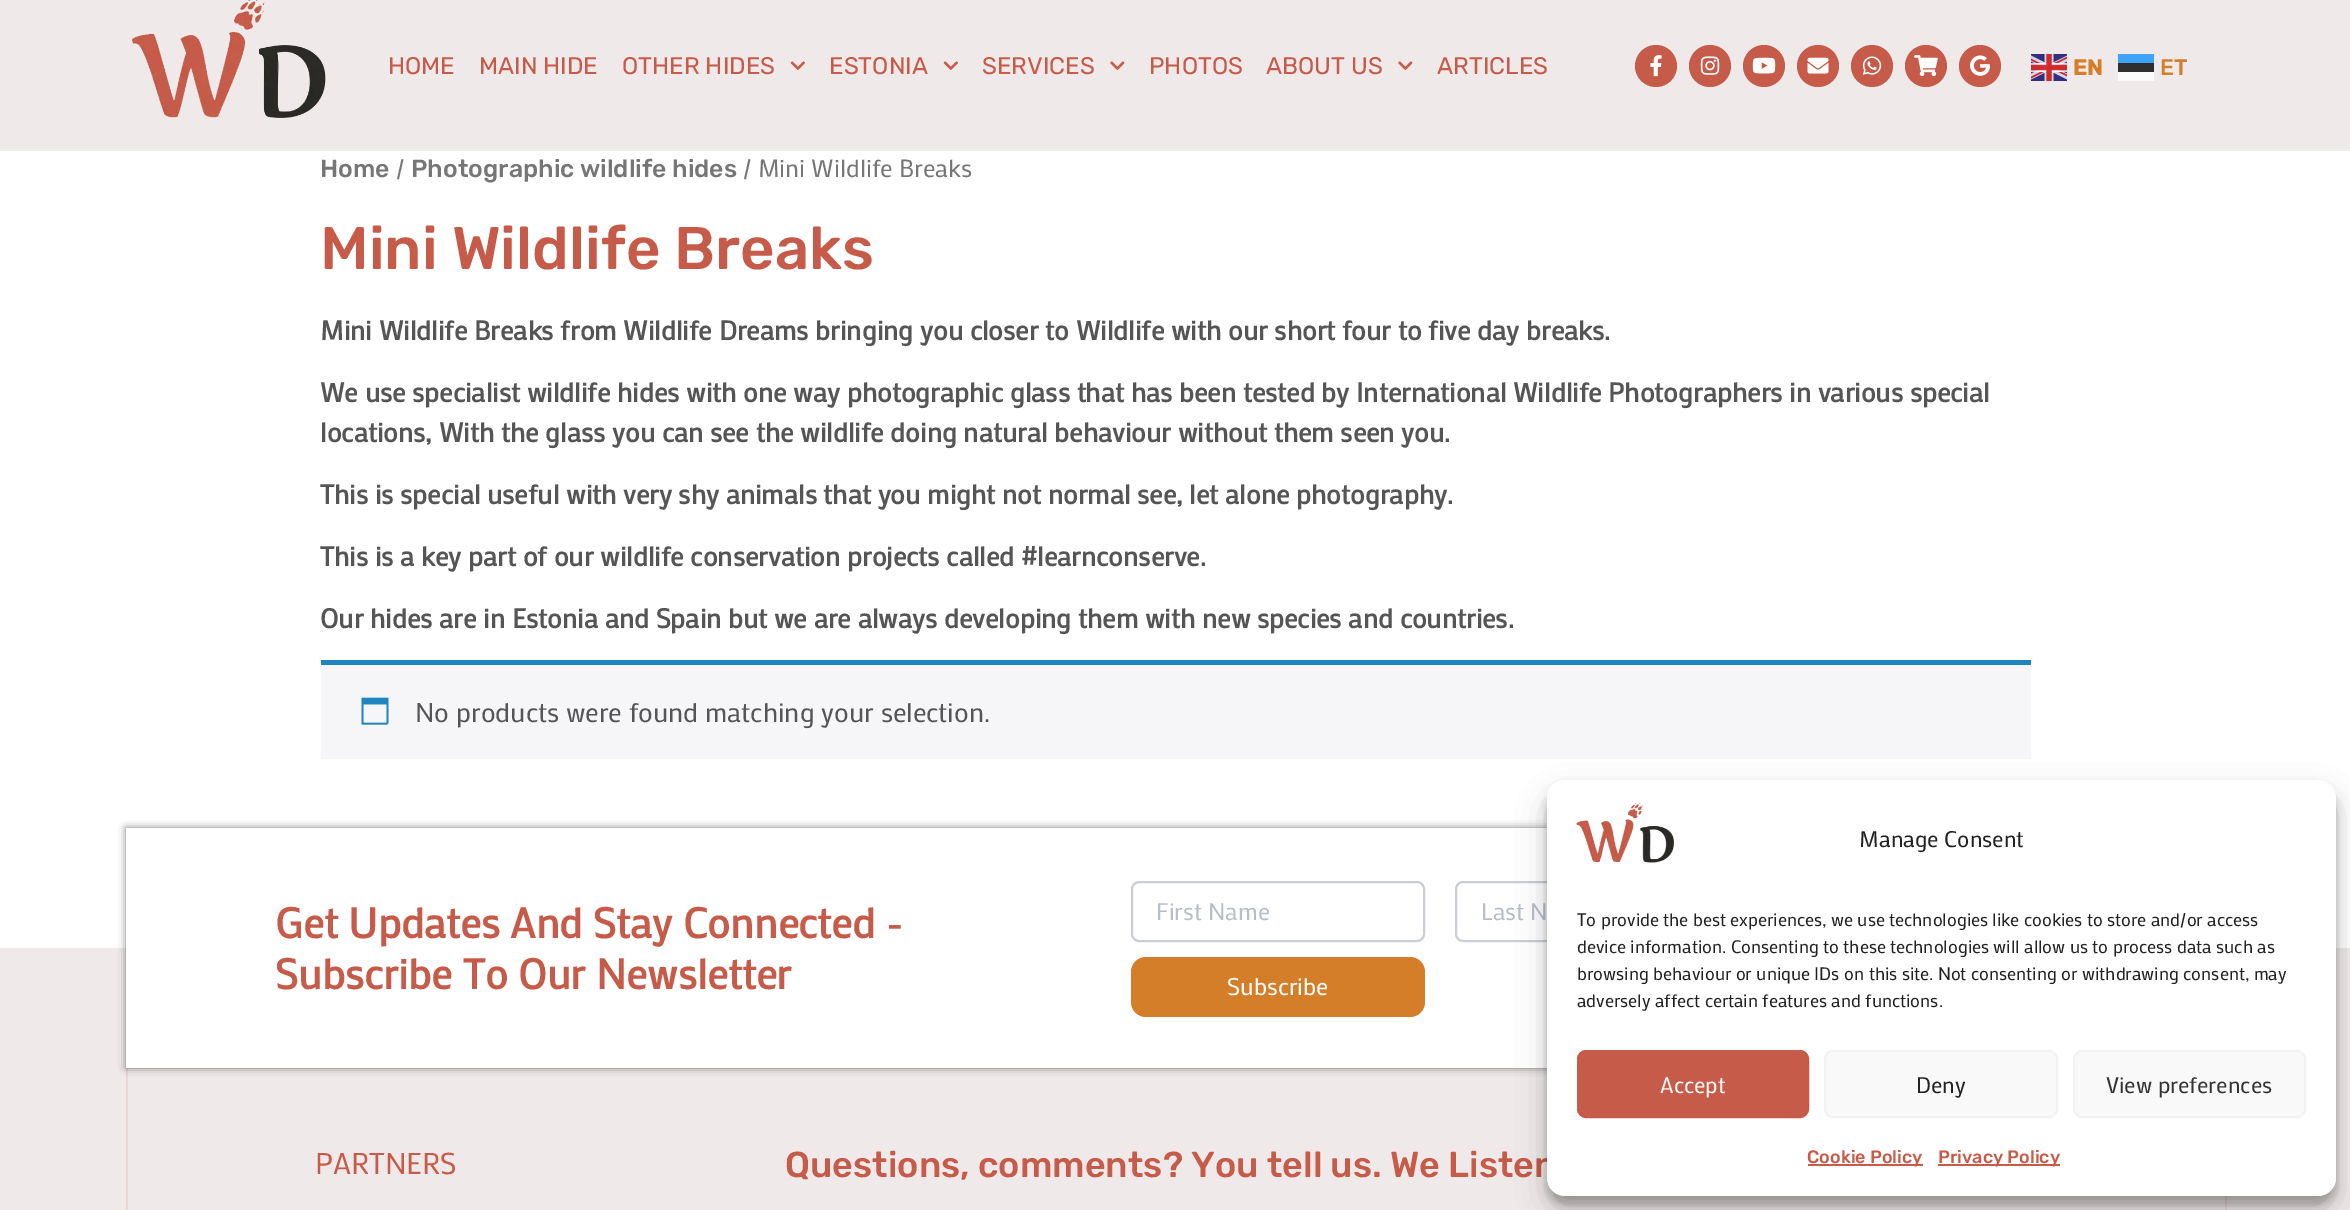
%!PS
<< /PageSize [2350 1210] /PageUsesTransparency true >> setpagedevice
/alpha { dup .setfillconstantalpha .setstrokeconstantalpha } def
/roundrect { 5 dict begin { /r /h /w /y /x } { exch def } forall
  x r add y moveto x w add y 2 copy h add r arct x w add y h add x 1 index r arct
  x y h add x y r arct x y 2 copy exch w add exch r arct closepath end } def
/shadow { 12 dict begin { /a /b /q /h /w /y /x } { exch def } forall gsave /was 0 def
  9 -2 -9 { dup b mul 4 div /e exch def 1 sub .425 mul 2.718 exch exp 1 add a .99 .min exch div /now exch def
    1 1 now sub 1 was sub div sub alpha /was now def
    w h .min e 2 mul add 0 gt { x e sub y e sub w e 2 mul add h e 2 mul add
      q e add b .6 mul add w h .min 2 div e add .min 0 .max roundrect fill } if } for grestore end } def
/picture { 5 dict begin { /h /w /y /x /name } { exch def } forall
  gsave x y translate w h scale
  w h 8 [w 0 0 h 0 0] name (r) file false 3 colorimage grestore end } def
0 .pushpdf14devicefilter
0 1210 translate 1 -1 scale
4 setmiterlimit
1 setgray
0 0 2350 1210 rectfill
0.941 0.914 0.914 setrgbcolor
0 0 2350 149 rectfill
0.937 setgray
0 149 2350 2 rectfill
(img1.rgb) 132 0 194 118 picture
/Rubik-Regular [24 0 0 -24 0 0] selectfont
0.773 0.357 0.282 setrgbcolor
388 74 moveto (HOME) show
479 74 moveto (MAIN HIDE) show
622 74 moveto (OTHER HIDES) show
(img2.rgb) 790 61 15 9 picture
829 74 moveto (ESTONIA) show
(img2.rgb) 943 61 15 9 picture
982 74 moveto (SERVICES) show
(img3.rgb) 1110 61 15 9 picture
1149 74 moveto (PHOTOS) show
1266 74 moveto (ABOUT US) show
(img3.rgb) 1398 61 15 9 picture
1437 74 moveto (ARTICLES) show
newpath 1656 66 21 0 360 arc closepath fill
(img4.rgb) 1650 55 12 22 picture
newpath 1710 66 21 0 360 arc closepath fill
(img5.rgb) 1700 56 20 19 picture
newpath 1764 66 21 0 360 arc closepath fill
(img6.rgb) 1752 57 24 17 picture
newpath 1818 66 21 0 360 arc closepath fill
(img7.rgb) 1807 57 22 17 picture
newpath 1872 66 21 0 360 arc closepath fill
(img8.rgb) 1862 56 20 19 picture
newpath 1926 66 21 0 360 arc closepath fill
(img9.rgb) 1914 55 24 22 picture
newpath 1980 66 21 0 360 arc closepath fill
(img10.rgb) 1970 55 20 21 picture
(img11.rgb) 2031 54 36 27 picture
/Rubik-Bold [22.5 0 0 -22.5 0 0] selectfont
0.835 0.494 0.165 setrgbcolor
2073 75 moveto (EN) show
/Rubik-Medium [22.5 0 0 -22.5 0 0] selectfont
2160 75 moveto (ET) show
0.188 0.184 0.184 setrgbcolor
2118 63 36 9 rectfill
0.988 0.984 0.984 setrgbcolor
2118 72 36 9 rectfill
0.243 0.639 0.984 setrgbcolor
2118 54 36 9 rectfill
/Rubik-Medium [24.8 0 0 -24.8 0 0] selectfont
0.463 setgray
320 177 moveto (Home) show
/Mako-Regular [24.8 0 0 -24.8 0 0] selectfont
396 177 moveto (/) show
/Rubik-Medium [24.8 0 0 -24.8 0 0] selectfont
411 177 moveto (Photographic wildlife hides) show
/Mako-Regular [24.8 0 0 -24.8 0 0] selectfont
743 177 moveto (/ Mini Wildlife Breaks) show
/Rubik-Medium [60 0 0 -60 0 0] selectfont
0.773 0.357 0.282 setrgbcolor
320 269 moveto (Mini Wildlife Breaks) show
/Mako-Bold [27 0 0 -27 0 0] selectfont
0.333 setgray
320 340 moveto (Mini Wildlife Breaks from Wildlife Dreams bringing you closer to Wildlife with our short four to five day breaks.) show
320 402 moveto (We use specialist wildlife hides with one way photographic glass that has been tested by International Wildlife Photographers in various special) show
320 442 moveto (locations, With the glass you can see the wildlife doing natural behaviour without them seen you.) show
320 504 moveto (This is special useful with very shy animals that you might not normal see, let alone photography.) show
320 566 moveto (This is a key part of our wildlife conservation projects called #learnconserve.) show
320 628 moveto (Our hides are in Estonia and Spain but we are always developing them with new species and countries.) show
0.965 0.961 0.973 setrgbcolor
321 665 1710 94 rectfill
0.118 0.522 0.745 setrgbcolor
321 660 1710 5 rectfill
(img12.rgb) 361 697 28 28 picture
/Mako-Regular [27 0 0 -27 0 0] selectfont
0.333 setgray
415 722 moveto (No products were found matching your selection.) show
0.941 0.914 0.914 setrgbcolor
0 948 2350 262 rectfill
0.922 0.839 0.839 setrgbcolor
126 1068 2 142 rectfill
0 setgray
126 828 2100 240 0 4 0.5 shadow
1 setgray
126 828 1421 240 rectfill
/Mako-Bold [42 0 0 -42 0 0] selectfont
0.773 0.357 0.282 setrgbcolor
275 938 moveto (Get Updates And Stay Connected -) show
275 989 moveto (Subscribe To Our Newsletter) show
0.792 0.808 0.843 setrgbcolor
2 setlinewidth
1132 882 292 59 7 roundrect stroke
/Mako-Regular [24 0 0 -24 0 0] selectfont
0.722 0.741 0.788 setrgbcolor
1156 920 moveto (First Name) show
0.792 0.808 0.843 setrgbcolor
1456 882 294 59 7 roundrect stroke
0.722 0.741 0.788 setrgbcolor
1481 920 moveto (Last N) show
0.835 0.494 0.165 setrgbcolor
1131 957 294 60 15 roundrect fill
1 0.996 0.992 setrgbcolor
1227 995 moveto (Subscribe) show
0.922 0.839 0.839 setrgbcolor
2225 1196 2 14 rectfill
/Mako-Regular [30 0 0 -30 0 0] selectfont
0.773 0.357 0.282 setrgbcolor
315 1174 moveto (PARTNERS) show
/Rubik-Medium [36 0 0 -36 0 0] selectfont
785 1177 moveto (Questions, comments? You tell us. We Listen) show
0 setgray
1547 789 789 416 18 4.5 0.23 shadow
1547 795 789 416 18 15 0.19 shadow
1 setgray
1547 780 789 416 18 roundrect fill
(img13.rgb) 1576 802 98 61 picture
/Mako-Regular [22.5 0 0 -22.5 0 0] selectfont
0.133 setgray
1859 847 moveto (Manage Consent) show
/Mako-Regular [18 0 0 -18 0 0] selectfont
1577 926 moveto (To provide the best experiences, we use technologies like cookies to store and/or access) show
1577 953 moveto (device information. Consenting to these technologies will allow us to process data such as) show
1577 980 moveto (browsing behaviour or unique IDs on this site. Not consenting or withdrawing consent, may) show
1577 1007 moveto (adversely affect certain features and functions.) show
0.773 0.357 0.282 setrgbcolor
1578 1051 230 66 8 roundrect gsave fill grestore
stroke
/Mako-Regular [22.5 0 0 -22.5 0 0] selectfont
1 0.996 0.992 setrgbcolor
1660 1093 moveto (Accept) show
0.976 setgray
1825 1051 232 66 8 roundrect gsave fill grestore
0.949 setgray
stroke
0.133 setgray
1916 1093 moveto (Deny) show
0.976 setgray
2074 1051 231 66 8 roundrect gsave fill grestore
0.949 setgray
stroke
0.2 setgray
2106 1093 moveto (View preferences) show
0.773 0.357 0.282 setrgbcolor
1808 1164 115 2 rectfill
/Rubik-Medium [18 0 0 -18 0 0] selectfont
1807 1163 moveto (Cookie Policy) show
1938 1164 122 2 rectfill
1938 1163 moveto (Privacy Policy) show
.poppdf14devicefilter showpage
